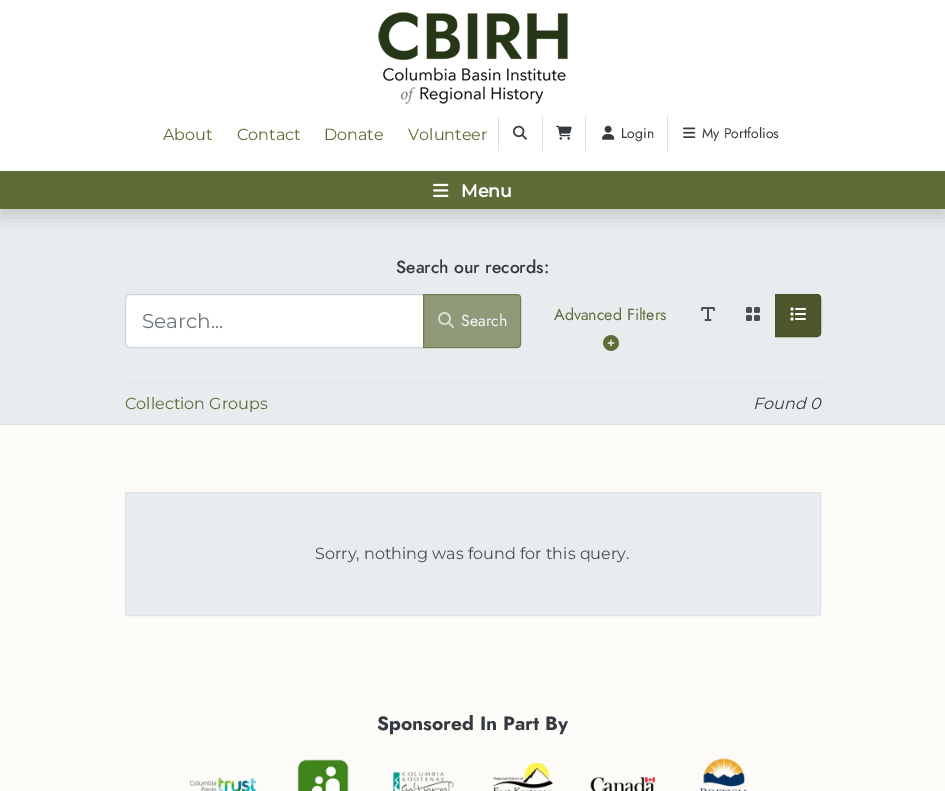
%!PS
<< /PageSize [945 791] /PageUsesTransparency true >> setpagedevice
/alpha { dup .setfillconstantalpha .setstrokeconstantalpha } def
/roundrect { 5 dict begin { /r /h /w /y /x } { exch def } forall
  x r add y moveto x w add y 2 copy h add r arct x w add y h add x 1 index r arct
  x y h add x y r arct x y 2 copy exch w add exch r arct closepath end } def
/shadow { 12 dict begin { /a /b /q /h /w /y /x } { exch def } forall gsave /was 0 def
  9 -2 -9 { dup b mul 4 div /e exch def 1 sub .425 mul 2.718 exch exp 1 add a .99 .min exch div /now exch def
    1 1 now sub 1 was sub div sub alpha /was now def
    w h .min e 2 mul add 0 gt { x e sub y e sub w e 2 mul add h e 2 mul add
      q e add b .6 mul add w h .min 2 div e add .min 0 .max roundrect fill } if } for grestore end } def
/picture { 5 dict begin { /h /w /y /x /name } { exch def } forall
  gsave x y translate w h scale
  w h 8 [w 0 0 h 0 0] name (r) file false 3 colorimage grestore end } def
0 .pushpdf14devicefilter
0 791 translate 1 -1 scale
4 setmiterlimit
0.988 0.984 0.969 setrgbcolor
0 0 945 791 rectfill
0.914 0.925 0.937 setrgbcolor
0 209 945 215 rectfill
0 setgray
0 8 945 209 0 8 0.15 shadow
1 setgray
0 0 945 171 rectfill
(img1.rgb) 378 12 190 92 picture
0.867 setgray
498 118 1 33 rectfill
/Montserrat-Regular [16 0 0 -16 0 0] selectfont
0.376 0.424 0.22 setrgbcolor
163 140 moveto (About) show
237 140 moveto (Contact) show
324 140 moveto (Donate) show
408 140 moveto (Volunteer) show
0.867 setgray
542 116 1 35 rectfill
(img2.rgb) 513 125 14 15 picture
585 116 1 35 rectfill
(img3.rgb) 556 125 16 15 picture
667 116 1 35 rectfill
(img4.rgb) 602 125 13 15 picture
/Jost-Regular [14 0 0 -14 0 0] selectfont
0.204 0.227 0.251 setrgbcolor
621 138 moveto (Login) show
(img5.rgb) 683 127 13 11 picture
702 138 moveto (My Portfolios) show
0.376 0.424 0.22 setrgbcolor
0 171 945 38 rectfill
(img6.rgb) 433 183 16 14 picture
/Montserrat-Bold [17.5 0 0 -17.5 0 0] selectfont
1 setgray
461 197 moveto (Menu) show
0.871 0.886 0.902 setrgbcolor
0 424 945 1 rectfill
/Jost-Medium [17.5 0 0 -17.5 0 0] selectfont
0.204 0.227 0.251 setrgbcolor
396 273 moveto (Search our records:) show
1 setgray
newpath 130 294.5 moveto 423.5 294.5 lineto 423.5 347.5 lineto 130 347.5 lineto 127.5 347.5 125.5 345.5 125.5 343 curveto 125.5 299 lineto 125.5 296.5 127.5 294.5 130 294.5 curveto closepath gsave fill grestore
0.808 0.831 0.855 setrgbcolor
stroke
/Montserrat-Regular [20 0 0 -20 0 0] selectfont
0.424 0.459 0.49 setrgbcolor
142 328 moveto (Search...) show
0.65 alpha
0.376 0.424 0.22 setrgbcolor
newpath 423 294 moveto 517 294 lineto 519 294 521 296 521 298 curveto 521 344 lineto 521 346 519 348 517 348 curveto 423 348 lineto closepath fill
newpath 423.5 294.5 moveto 517 294.5 lineto 519 294.5 520.5 296 520.5 298 curveto 520.5 344 lineto 520.5 346 519 347.5 517 347.5 curveto 423.5 347.5 lineto closepath stroke
1 alpha
(img7.rgb) 438 312 16 16 picture
/Jost-Regular [16 0 0 -16 0 0] selectfont
0.969 0.973 0.976 setrgbcolor
461 326 moveto (Search) show
0.376 0.424 0.22 setrgbcolor
554 320 moveto (Advanced Filters) show
(img8.rgb) 603 335 16 16 picture
(img9.rgb) 701 307 14 14 picture
(img10.rgb) 746 307 14 14 picture
0.302 0.337 0.176 setrgbcolor
newpath 775.5 294.5 moveto 817 294.5 lineto 819 294.5 820.5 296 820.5 298 curveto 820.5 333 lineto 820.5 335 819 336.5 817 336.5 curveto 775.5 336.5 lineto closepath gsave fill grestore
0.282 0.318 0.165 setrgbcolor
stroke
(img11.rgb) 790 307 16 14 picture
0.871 0.886 0.902 setrgbcolor
125 382 696 1 rectfill
/Montserrat-Regular [16 0 0 -16 0 0] selectfont
0.376 0.424 0.22 setrgbcolor
125 409 moveto (Collection Groups) show
/Montserrat-Italic [16 0 0 -16 0 0] selectfont
0.204 0.227 0.251 setrgbcolor
753 409 moveto (Found 0) show
0.914 0.925 0.937 setrgbcolor
newpath 125.5 492.5 moveto 820.5 492.5 lineto 820.5 615.5 lineto 125.5 615.5 lineto closepath gsave fill grestore
0.871 0.886 0.902 setrgbcolor
stroke
/Montserrat-Regular [16 0 0 -16 0 0] selectfont
0.286 0.314 0.341 setrgbcolor
315 559 moveto (Sorry, nothing was found for this query.) show
/Jost-Bold [19.25 0 0 -19.25 0 0] selectfont
0.204 0.227 0.251 setrgbcolor
377 730 moveto (Sponsored In Part By) show
(img12.rgb) 189 777 68 14 picture
(img13.rgb) 297 759 52 32 picture
(img14.rgb) 393 771 61 20 picture
(img15.rgb) 492 762 61 29 picture
(img16.rgb) 590 776 66 15 picture
(img17.rgb) 699 758 48 33 picture
.poppdf14devicefilter showpage
